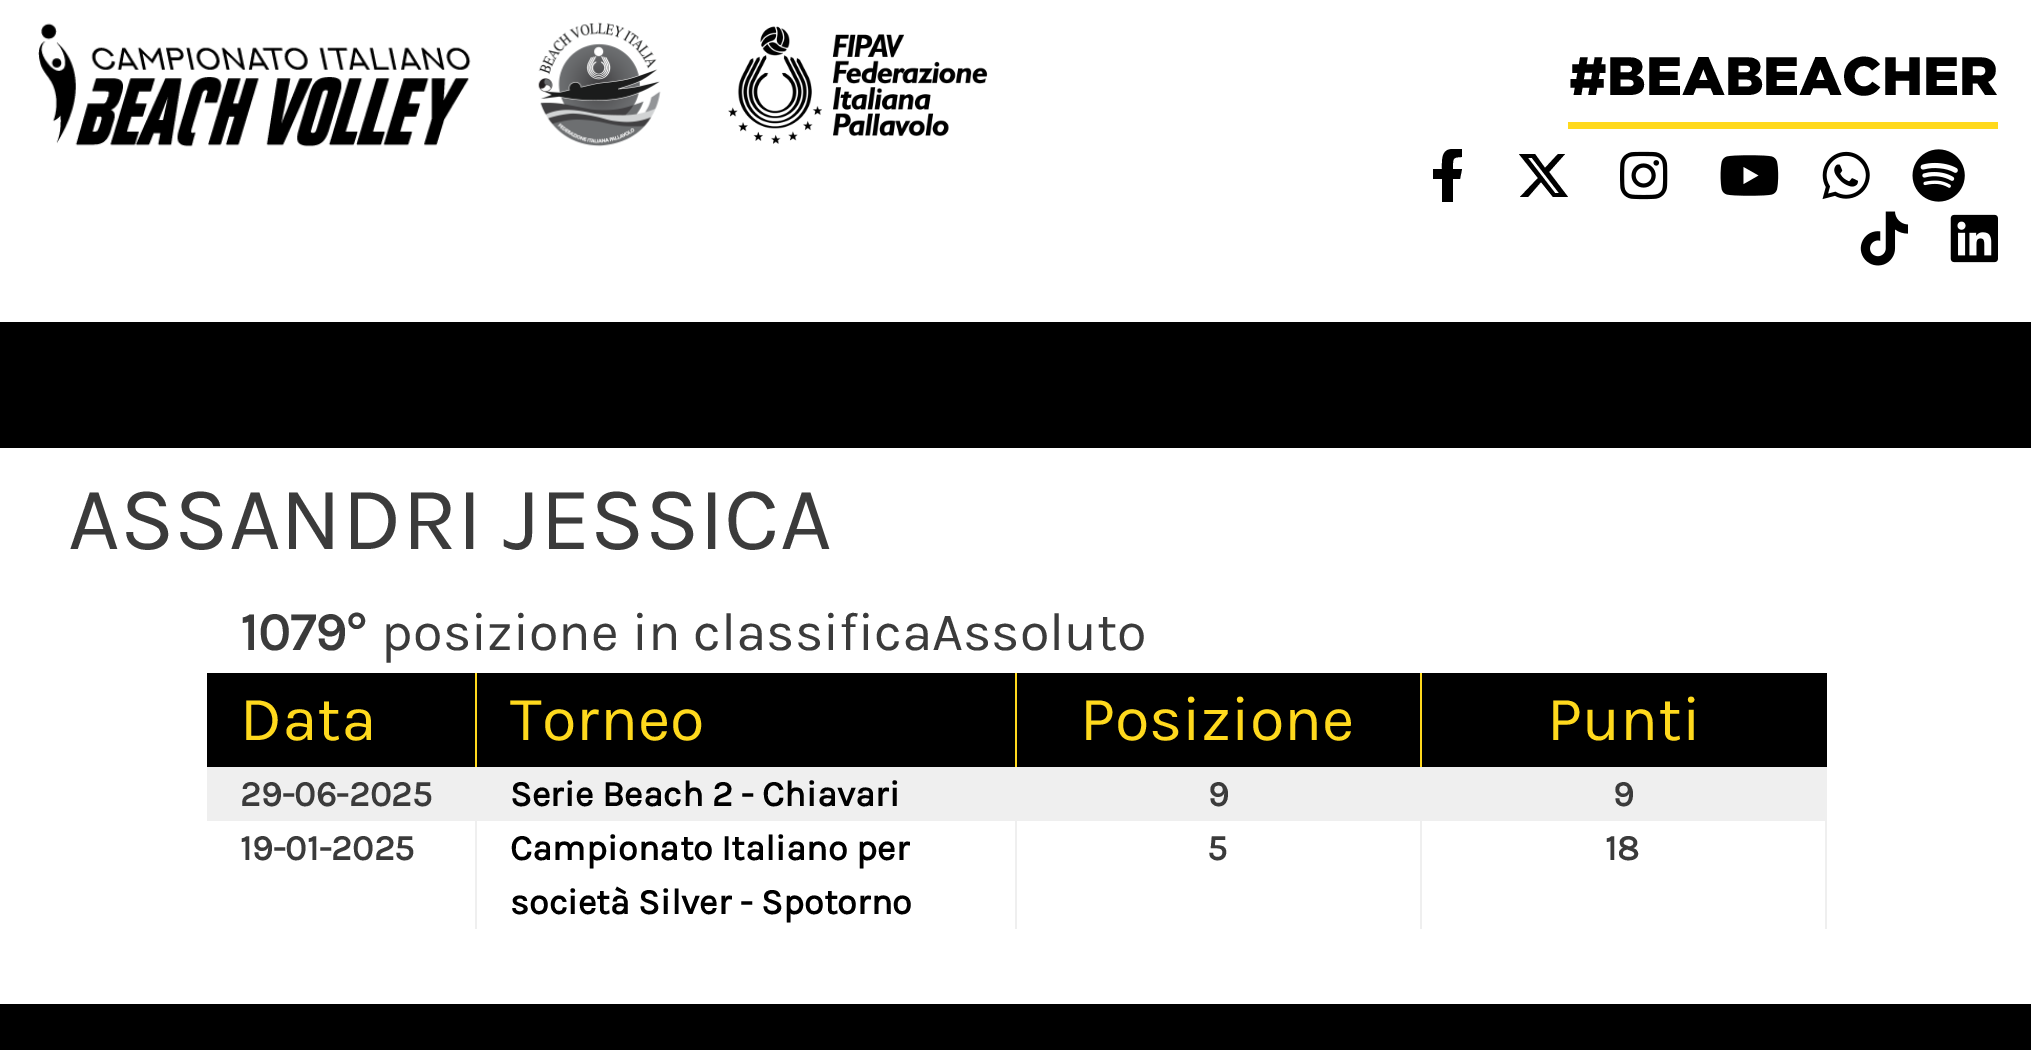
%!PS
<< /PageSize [2031 1050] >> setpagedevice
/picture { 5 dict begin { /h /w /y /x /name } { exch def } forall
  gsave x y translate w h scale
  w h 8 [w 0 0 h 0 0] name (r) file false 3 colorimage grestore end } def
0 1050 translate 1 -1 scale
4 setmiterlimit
1 setgray
0 0 2031 1050 rectfill
(img1.rgb) 38 23 433 124 picture
(img2.rgb) 538 22 123 125 picture
(img3.rgb) 728 26 260 118 picture
/Gotham-Black [54 0 0 -54 0 0] selectfont
0 setgray
1569 95 moveto (#BEABEACHER) show
1 0.851 0.114 setrgbcolor
1568 122 430 7 rectfill
0 setgray
newpath 1460 179 moveto 1462 169 lineto 1453 169 lineto 1453 159 1452 157 1462 157 curveto 1462 149 lineto 1453 149 lineto 1441 149 1442 160 1442 169 curveto 1433 169 lineto 1433 179 lineto 1442 179 lineto 1442 202 lineto 1453 202 lineto 1453 179 lineto closepath fill
newpath 1558 154 moveto 1565 154 lineto 1549 172 lineto 1568 197 lineto 1553 197 lineto 1541 182 lineto 1528 197 lineto 1520 197 lineto 1538 178 lineto 1519 154 lineto 1535 154 lineto 1545 168 lineto closepath 1555 193 moveto 1559 193 lineto 1532 158 lineto 1528 158 lineto closepath fill
(img4.rgb) 1620 151 48 49 picture
(img5.rgb) 1720 155 59 41 picture
(img6.rgb) 1822 151 48 49 picture
(img7.rgb) 1912 149 53 53 picture
(img8.rgb) 1860 211 48 55 picture
(img9.rgb) 1950 214 48 49 picture
0 322 2031 126 rectfill
/Karla-Regular [90 0 0 -90 0 0] selectfont
0.231 setgray
68 549 moveto (ASSANDRI JESSICA) show
/Karla-Bold [54 0 0 -54 0 0] selectfont
240 650 moveto (1079) show
/LiberationSans-Bold [54 0 0 -54 0 0] selectfont
346 650 moveto (°) show
/Karla-Regular [54 0 0 -54 0 0] selectfont
381 650 moveto (posizione in classificaAssoluto) show
0 setgray
207 673 1620 94 rectfill
1 0.851 0.114 setrgbcolor
475 673 2 94 rectfill
/Karla-Regular [63 0 0 -63 0 0] selectfont
240 740 moveto (Data) show
1015 673 2 94 rectfill
510 740 moveto (Torneo) show
1420 673 2 94 rectfill
1080 740 moveto (Posizione) show
1547 740 moveto (Punti) show
0.937 setgray
207 767 1620 54 rectfill
/Karla-Bold [36 0 0 -36 0 0] selectfont
0.231 setgray
240 806 moveto (29-06-2025) show
0 setgray
510 806 moveto (Serie Beach 2 - Chiavari) show
0.231 setgray
1208 806 moveto (9) show
1613 806 moveto (9) show
0.937 setgray
475 821 2 108 rectfill
0.231 setgray
240 860 moveto (19-01-2025) show
0.937 setgray
1015 821 2 108 rectfill
0 setgray
510 860 moveto (Campionato Italiano per) show
510 914 moveto (società Silver - Spotorno) show
0.937 setgray
1420 821 2 108 rectfill
0.231 setgray
1207 860 moveto (5) show
0.937 setgray
1825 821 2 108 rectfill
0.231 setgray
1605 860 moveto (18) show
0 setgray
0 1004 2031 46 rectfill
showpage
